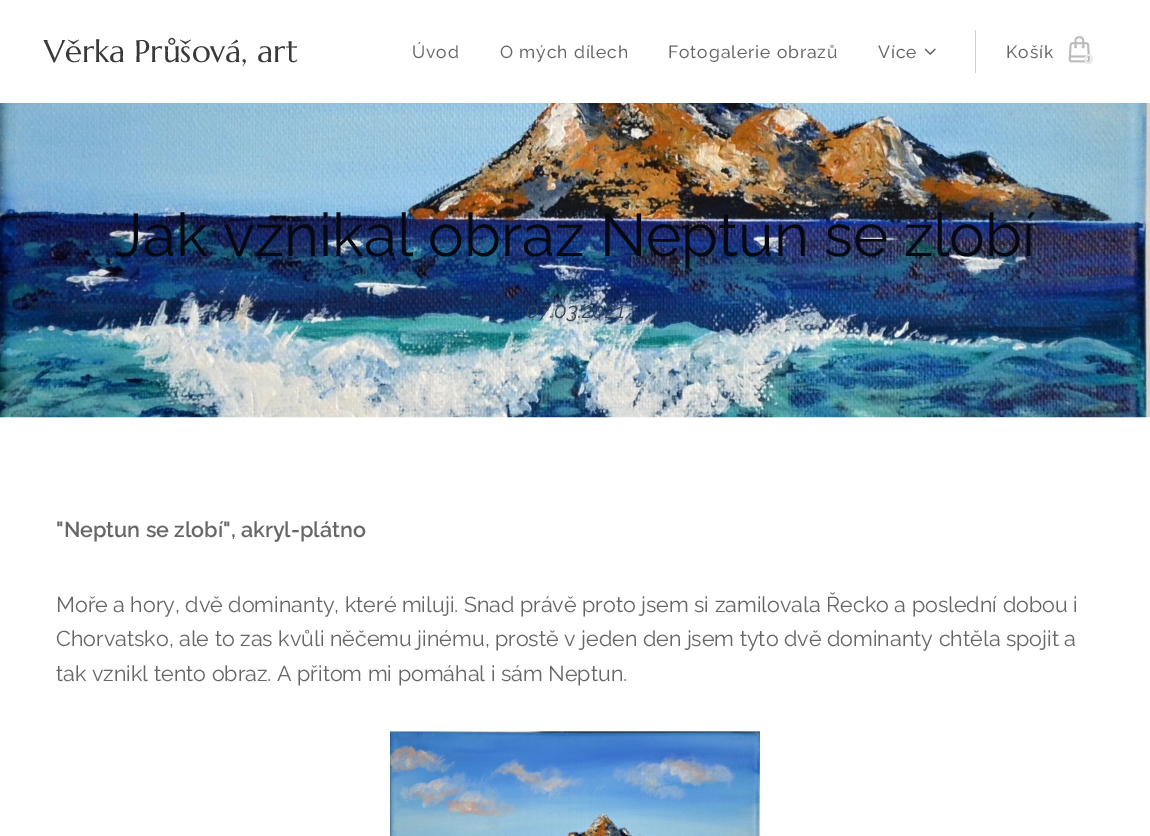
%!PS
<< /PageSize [1150 836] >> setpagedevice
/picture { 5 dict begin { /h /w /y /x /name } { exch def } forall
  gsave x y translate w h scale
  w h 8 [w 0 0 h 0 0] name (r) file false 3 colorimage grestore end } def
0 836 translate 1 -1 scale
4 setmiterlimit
1 setgray
0 0 1150 836 rectfill
/Marcellus-Regular [31.25 0 0 -31.25 0 0] selectfont
0.224 setgray
44 62 moveto (Věrka Průšová, art) show
/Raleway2-Regular [17.5 0 0 -17.5 0 0] selectfont
0.4 setgray
412 58 moveto 0.9 0 (Úvod) ashow
500 58 moveto 0.9 0 (O mých dílech) ashow
668 58 moveto 0.9 0 (Fotogalerie obrazů) ashow
878 58 moveto 0.9 0 (Více) ashow
(img1.rgb) 924 48 12 7 picture
0.82 setgray
975 30 1 43 rectfill
0.4 setgray
1006 58 moveto 0.9 0 (Košík) ashow
(img2.rgb) 1068 36 22 27 picture
/Montserrat-Bold [14 0 0 -14 0 0] selectfont
0.918 setgray
1084 64 moveto (0) show
(img3.rgb) 0 103 1150 315 picture
/Raleway-Regular [60 0 0 -60 0 0] selectfont
0.024 0.035 0.067 setrgbcolor
114 256 moveto (Jak vznikal obraz Neptun se zlobí) show
/Raleway-Italic [21.5 0 0 -21.5 0 0] selectfont
0.224 0.271 0.322 setrgbcolor
526 318 moveto (07.03.2021) show
/Raleway-SemiBold [21.5 0 0 -21.5 0 0] selectfont
0.4 setgray
56 537 moveto ("Neptun se zlobí", akryl-plátno) show
/Raleway-Regular [21.5 0 0 -21.5 0 0] selectfont
56 612 moveto (Moře a hory, dvě dominanty, které miluji. Snad právě proto jsem si zamilovala Řecko a poslední dobou i) show
56 646 moveto (Chorvatsko, ale to zas kvůli něčemu jinému, prostě v jeden den jsem tyto dvě dominanty chtěla spojit a) show
56 681 moveto (tak vznikl tento obraz. A přitom mi pomáhal i sám Neptun.) show
(img4.rgb) 390 731 370 105 picture
showpage
